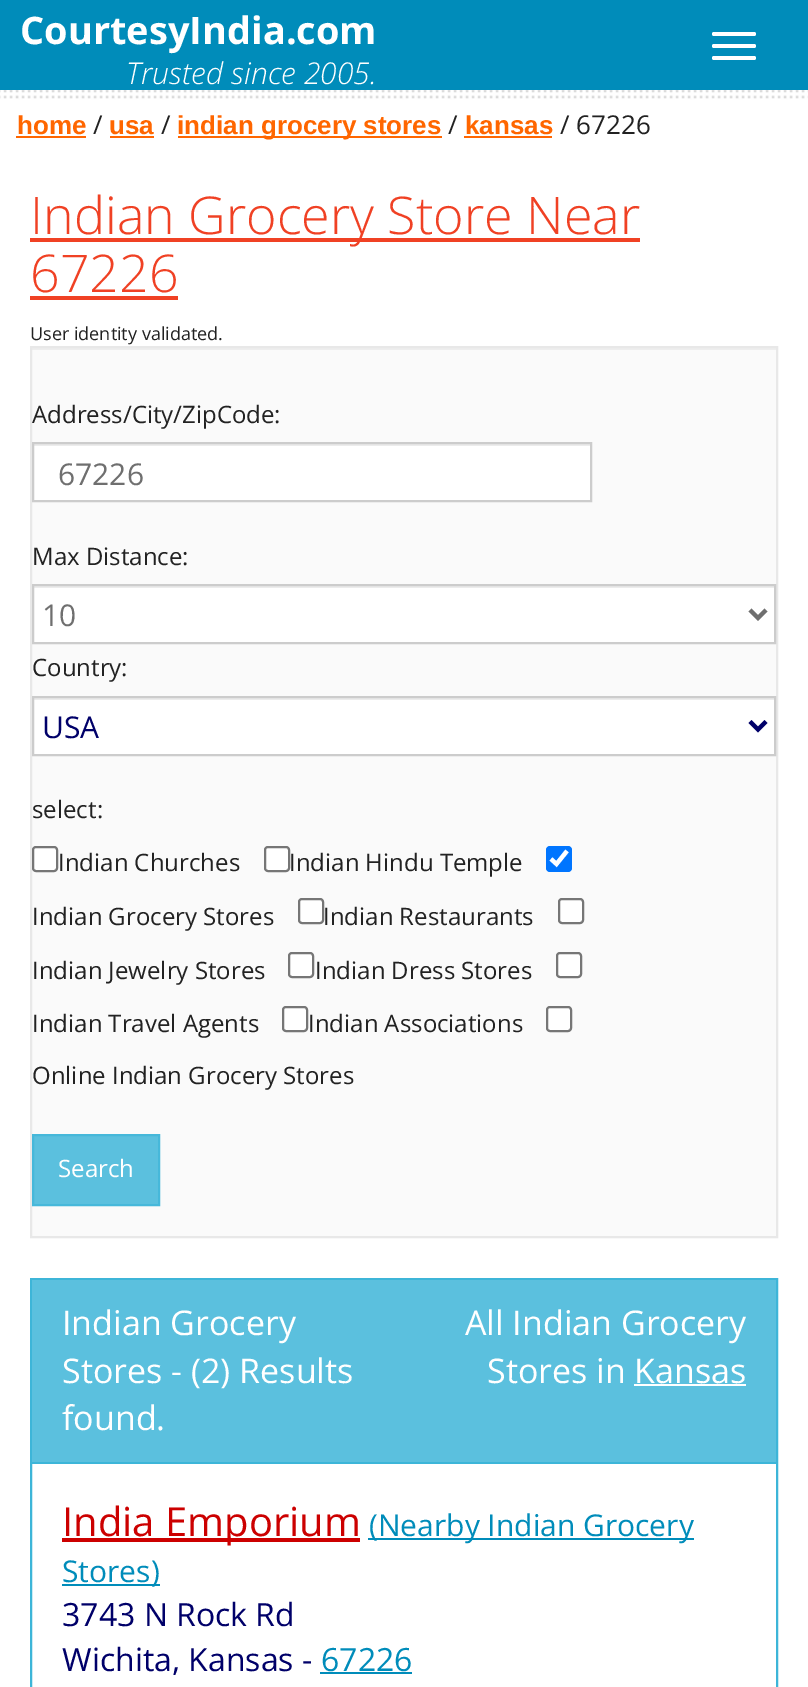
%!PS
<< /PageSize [808 1687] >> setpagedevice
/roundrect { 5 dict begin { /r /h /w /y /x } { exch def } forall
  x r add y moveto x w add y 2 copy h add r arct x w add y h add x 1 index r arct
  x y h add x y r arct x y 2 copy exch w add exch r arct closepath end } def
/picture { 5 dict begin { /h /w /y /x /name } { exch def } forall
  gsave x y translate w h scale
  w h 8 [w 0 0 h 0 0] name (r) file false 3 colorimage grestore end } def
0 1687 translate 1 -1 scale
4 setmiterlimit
1 setgray
0 0 808 1687 rectfill
(img1.rgb) 0 90 808 10 picture
0 0.549 0.729 setrgbcolor
0 0 808 90 rectfill
/OpenSans-Bold [38 0 0 -38 0 0] selectfont
1 setgray
20 44 moveto (CourtesyIndia.com) show
/OpenSans-LightItalic [30 0 0 -30 0 0] selectfont
126 84 moveto (Trusted since 2005.) show
712 32 44 4 2 roundrect fill
712 44 44 4 2 roundrect fill
712 56 44 4 2 roundrect fill
/LiberationSans-Bold [26 0 0 -26 0 0] selectfont
1 0.4 0 setrgbcolor
17 134 moveto (home) show
16 136 70 2 rectfill
/OpenSans-Regular [26 0 0 -26 0 0] selectfont
0.133 setgray
93 134 moveto (/) show
/LiberationSans-Bold [26 0 0 -26 0 0] selectfont
1 0.4 0 setrgbcolor
109 134 moveto (usa) show
110 136 44 2 rectfill
/OpenSans-Regular [26 0 0 -26 0 0] selectfont
0.133 setgray
161 134 moveto (/) show
1 0.4 0 setrgbcolor
178 136 264 2 rectfill
/LiberationSans-Bold [26 0 0 -26 0 0] selectfont
177 134 moveto (indian grocery stores) show
/OpenSans-Regular [26 0 0 -26 0 0] selectfont
0.133 setgray
448 134 moveto (/) show
/LiberationSans-Bold [26 0 0 -26 0 0] selectfont
1 0.4 0 setrgbcolor
465 134 moveto (kansas) show
464 136 88 2 rectfill
/OpenSans-Regular [26 0 0 -26 0 0] selectfont
0.133 setgray
560 134 moveto (/ 67226) show
0.941 0.255 0.141 setrgbcolor
30 238 610 4 rectfill
/OpenSans-Light [52 0 0 -52 0 0] selectfont
30 234 moveto (Indian Grocery Store Near) show
30 292 moveto (67226) show
30 296 148 4 rectfill
/OpenSans-Regular [18 0 0 -18 0 0] selectfont
0.133 setgray
30 340 moveto (User identity validated.) show
0.98 setgray
32 350 744 886 rectfill
0.933 setgray
32 348 744 2 rectfill
0.91 setgray
2 setlinewidth
31 347 746 890 rectstroke
/OpenSans-Regular [24 0 0 -24 0 0] selectfont
0.133 setgray
32 423 moveto (Address/City/ZipCode:) show
1 setgray
34 446 556 54 rectfill
0.925 setgray
34 444 556 2 rectfill
0.8 setgray
33 443 558 58 rectstroke
/OpenSans-Regular [30 0 0 -30 0 0] selectfont
0.435 setgray
58 485 moveto (67226) show
/OpenSans-Regular [24 0 0 -24 0 0] selectfont
0.133 setgray
32 565 moveto (Max Distance:) show
1 setgray
34 588 740 54 rectfill
0.925 setgray
34 586 740 2 rectfill
0.8 setgray
33 585 742 58 rectstroke
0.435 setgray
4 setlinewidth
newpath 750 610 moveto 758 618 lineto 766 610 lineto stroke
/OpenSans-Regular [30 0 0 -30 0 0] selectfont
42 626 moveto (10) show
/OpenSans-Regular [24 0 0 -24 0 0] selectfont
0.133 setgray
32 676 moveto (Country:) show
1 setgray
34 700 740 54 rectfill
0.925 setgray
34 698 740 2 rectfill
0.8 setgray
2 setlinewidth
33 697 742 58 rectstroke
0 0 0.412 setrgbcolor
4 setlinewidth
newpath 750 721.5 moveto 758 729.5 lineto 766 721.5 lineto stroke
/OpenSans-Regular [30 0 0 -30 0 0] selectfont
42 738 moveto (USA) show
/OpenSans-Regular [24 0 0 -24 0 0] selectfont
0.133 setgray
32 818 moveto (select:) show
1 setgray
33 847 24 24 3 roundrect gsave fill grestore
0.463 setgray
2 setlinewidth
stroke
0.133 setgray
58 871 moveto (Indian Churches) show
1 setgray
265 847 24 24 3 roundrect gsave fill grestore
0.463 setgray
stroke
0.133 setgray
289 871 moveto (Indian Hindu Temple) show
0 0.459 1 setrgbcolor
546 846 26 26 4 roundrect fill
1 setgray
4.2 setlinewidth
newpath 551 859 moveto 556.5 864 lineto 567 851 lineto stroke
0.133 setgray
32 925 moveto (Indian Grocery Stores) show
1 setgray
299 899 24 24 3 roundrect gsave fill grestore
0.463 setgray
2 setlinewidth
stroke
0.133 setgray
323 925 moveto (Indian Restaurants) show
1 setgray
559 899 24 24 3 roundrect gsave fill grestore
0.463 setgray
stroke
0.133 setgray
32 979 moveto (Indian Jewelry Stores) show
1 setgray
289 953 24 24 3 roundrect gsave fill grestore
0.463 setgray
stroke
0.133 setgray
315 979 moveto (Indian Dress Stores) show
1 setgray
557 953 24 24 3 roundrect gsave fill grestore
0.463 setgray
stroke
0.133 setgray
32 1032 moveto (Indian Travel Agents) show
1 setgray
283 1007 24 24 3 roundrect gsave fill grestore
0.463 setgray
stroke
0.133 setgray
308 1032 moveto (Indian Associations) show
1 setgray
547 1007 24 24 3 roundrect gsave fill grestore
0.463 setgray
stroke
0.133 setgray
32 1084 moveto (Online Indian Grocery Stores) show
0.357 0.753 0.871 setrgbcolor
newpath 33 1135 moveto 159 1135 lineto 159 1205 lineto 33 1205 lineto closepath gsave fill grestore
0.275 0.722 0.855 setrgbcolor
stroke
1 setgray
58 1177 moveto (Search) show
0.239 0.71 0.847 setrgbcolor
31 1279 746 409 rectstroke
0.357 0.753 0.871 setrgbcolor
32 1280 744 182 rectfill
0.239 0.71 0.847 setrgbcolor
32 1462 744 2 rectfill
/OpenSans-Regular [34 0 0 -34 0 0] selectfont
1 setgray
62 1335 moveto (Indian Grocery) show
62 1383 moveto (Stores - \(2\) Results) show
62 1430 moveto (found.) show
465 1335 moveto (All Indian Grocery) show
487 1383 moveto (Stores in Kansas) show
634 1384 112 2 rectfill
0.8 0 0 setrgbcolor
62 1538 298 4 rectfill
/OpenSans-Regular [40 0 0 -40 0 0] selectfont
62 1536 moveto (India Emporium) show
0 0.549 0.729 setrgbcolor
368 1538 326 2 rectfill
/OpenSans-Regular [30 0 0 -30 0 0] selectfont
369 1536 moveto (\(Nearby Indian Grocery) show
62 1584 98 2 rectfill
62 1582 moveto (Stores\)) show
/OpenSans-Regular [32 0 0 -32 0 0] selectfont
0 0 0.412 setrgbcolor
62 1626 moveto (3743 N Rock Rd) show
62 1671 moveto (Wichita, Kansas -) show
0 0.549 0.729 setrgbcolor
321 1671 moveto (67226) show
320 1672 92 2 rectfill
showpage
